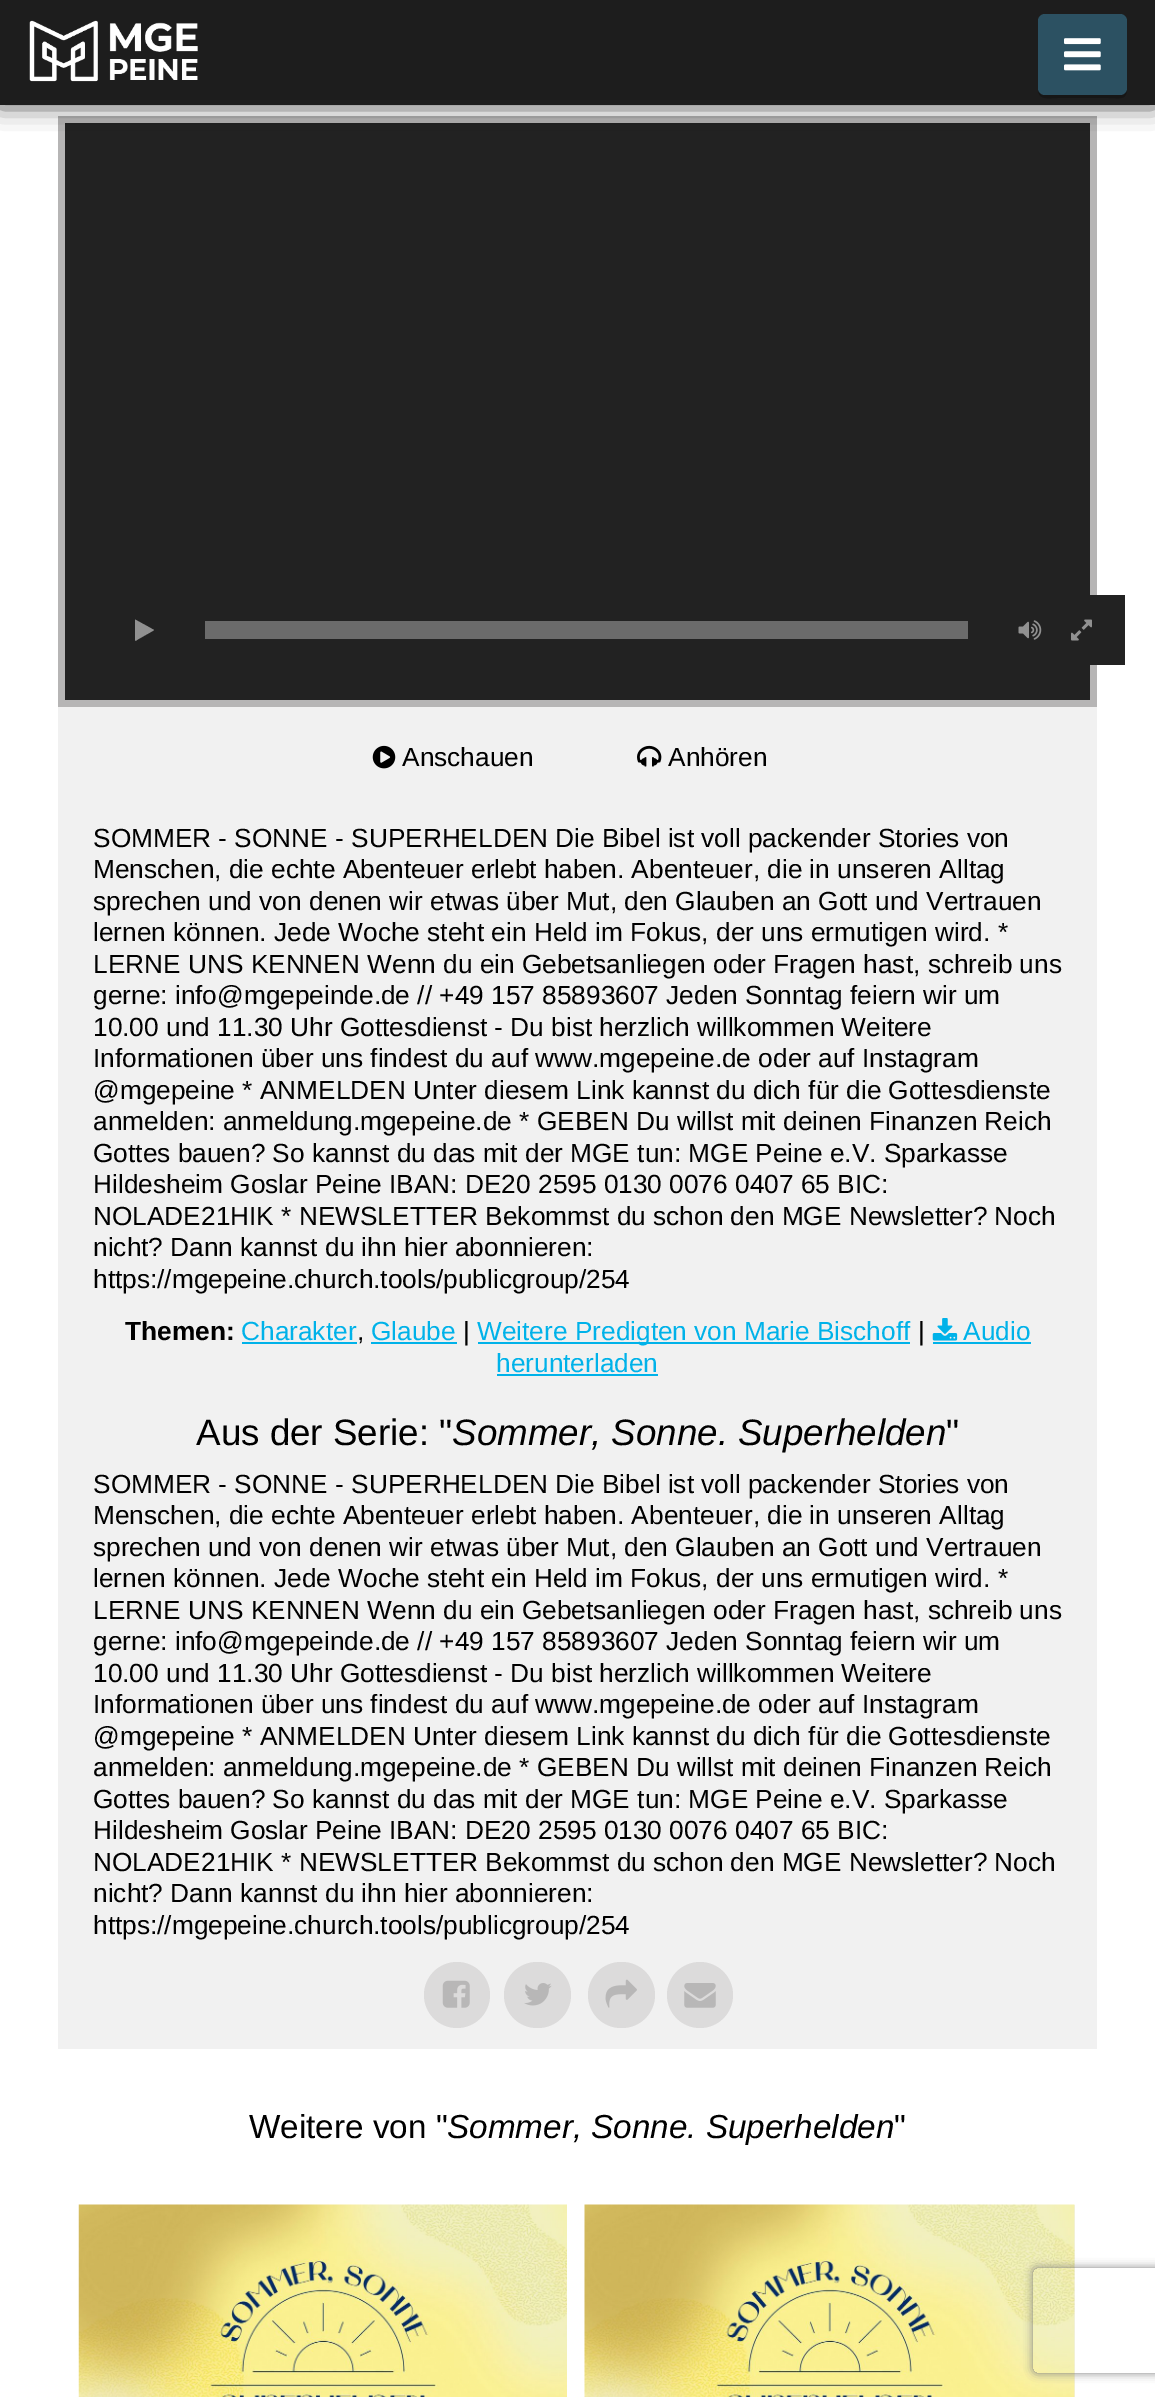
%!PS
<< /PageSize [1155 2397] /PageUsesTransparency true >> setpagedevice
/alpha { dup .setfillconstantalpha .setstrokeconstantalpha } def
/roundrect { 5 dict begin { /r /h /w /y /x } { exch def } forall
  x r add y moveto x w add y 2 copy h add r arct x w add y h add x 1 index r arct
  x y h add x y r arct x y 2 copy exch w add exch r arct closepath end } def
/shadow { 12 dict begin { /a /b /q /h /w /y /x } { exch def } forall gsave /was 0 def
  9 -2 -9 { dup b mul 4 div /e exch def 1 sub .425 mul 2.718 exch exp 1 add a .99 .min exch div /now exch def
    1 1 now sub 1 was sub div sub alpha /was now def
    w h .min e 2 mul add 0 gt { x e sub y e sub w e 2 mul add h e 2 mul add
      q e add b .6 mul add w h .min 2 div e add .min 0 .max roundrect fill } if } for grestore end } def
/picture { 5 dict begin { /h /w /y /x /name } { exch def } forall
  gsave x y translate w h scale
  w h 8 [w 0 0 h 0 0] name (r) file false 3 colorimage grestore end } def
0 .pushpdf14devicefilter
0 2397 translate 1 -1 scale
4 setmiterlimit
1 setgray
0 0 1155 2397 rectfill
0.714 0.71 0.71 setrgbcolor
58 116 1039 591 rectfill
0.133 setgray
65 123 1025 577 rectfill
0 setgray
0 -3 1155 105 0 13 1 shadow
0.114 setgray
0 0 1155 105 rectfill
(img1.rgb) 29 20 169 62 picture
0.086 setgray
newpath 1038 89 moveto 1038 101 1049 98 1058 98 curveto 1108 98 lineto 1120 98 1127 101 1127 88 curveto 1127 91 1124 94 1120 94 curveto 1045 94 lineto 1042 94 1039 92 1038 89 curveto closepath fill
0.173 0.318 0.384 setrgbcolor
1038 14 89 81 7 roundrect fill
(img2.rgb) 1064 38 37 33 picture
0.945 setgray
58 707 1039 1342 rectfill
0.133 setgray
1090 595 35 70 rectfill
0.569 setgray
newpath 153.5 630.5 moveto 138.5 639 lineto 138 639 135.5 641.5 135 640.5 curveto 135 619.5 lineto 150.5 628 lineto 154 630 lineto closepath fill
0.42 setgray
205 621 763 18 rectfill
(img3.rgb) 1018 620 24 20 picture
(img4.rgb) 1071 619 21 22 picture
(img5.rgb) 372 745 24 24 picture
/LiberationSans-Regular [26.25 0 0 -26.25 0 0] selectfont
0 setgray
402 766 moveto (Anschauen) show
(img6.rgb) 637 745 25 22 picture
668 766 moveto (Anhören) show
93 847 moveto (SOMMER - SONNE - SUPERHELDEN Die Bibel ist voll packender Stories von) show
93 878 moveto (Menschen, die echte Abenteuer erlebt haben. Abenteuer, die in unseren Alltag) show
93 910 moveto (sprechen und von denen wir etwas über Mut, den Glauben an Gott und Vertrauen) show
93 941 moveto (lernen können. Jede Woche steht ein Held im Fokus, der uns ermutigen wird. *) show
93 973 moveto (LERNE UNS KENNEN Wenn du ein Gebetsanliegen oder Fragen hast, schreib uns) show
93 1004 moveto (gerne: info@mgepeinde.de // +49 157 85893607 Jeden Sonntag feiern wir um) show
93 1036 moveto (10.00 und 11.30 Uhr Gottesdienst - Du bist herzlich willkommen Weitere) show
93 1067 moveto (Informationen über uns findest du auf www.mgepeine.de oder auf Instagram) show
93 1099 moveto (@mgepeine * ANMELDEN Unter diesem Link kannst du dich für die Gottesdienste) show
93 1130 moveto (anmelden: anmeldung.mgepeine.de * GEBEN Du willst mit deinen Finanzen Reich) show
93 1162 moveto (Gottes bauen? So kannst du das mit der MGE tun: MGE Peine e.V. Sparkasse) show
93 1193 moveto (Hildesheim Goslar Peine IBAN: DE20 2595 0130 0076 0407 65 BIC:) show
93 1225 moveto (NOLADE21HIK * NEWSLETTER Bekommst du schon den MGE Newsletter? Noch) show
93 1256 moveto (nicht? Dann kannst du ihn hier abonnieren:) show
93 1288 moveto (https://mgepeine.church.tools/publicgroup/254) show
/LiberationSans-Bold [26.25 0 0 -26.25 0 0] selectfont
125 1340 moveto (Themen:) show
/LiberationSans-Regular [26.25 0 0 -26.25 0 0] selectfont
0 0.698 0.914 setrgbcolor
241 1340 moveto (Charakter) show
242 1342 115 2 rectfill
0 setgray
357 1340 moveto (,) show
0 0.698 0.914 setrgbcolor
371 1340 moveto (Glaube) show
371 1342 86 2 rectfill
0 setgray
463 1340 moveto (|) show
0 0.698 0.914 setrgbcolor
478 1342 432 2 rectfill
477 1340 moveto (Weitere Predigten von Marie Bischoff) show
0 setgray
918 1340 moveto (|) show
(img7.rgb) 932 1318 26 23 picture
0 0.698 0.914 setrgbcolor
963 1340 moveto (Audio) show
933 1342 98 2 rectfill
496 1372 moveto (herunterladen) show
497 1374 161 2 rectfill
/LiberationSans-Regular [36.75 0 0 -36.75 0 0] selectfont
0 setgray
196 1445 moveto (Aus der Serie: ") show
/LiberationSans-Italic [36.75 0 0 -36.75 0 0] selectfont
452 1445 moveto (Sommer, Sonne. Superhelden) show
/LiberationSans-Regular [36.75 0 0 -36.75 0 0] selectfont
946 1445 moveto (") show
/LiberationSans-Regular [26.25 0 0 -26.25 0 0] selectfont
93 1493 moveto (SOMMER - SONNE - SUPERHELDEN Die Bibel ist voll packender Stories von) show
93 1524 moveto (Menschen, die echte Abenteuer erlebt haben. Abenteuer, die in unseren Alltag) show
93 1556 moveto (sprechen und von denen wir etwas über Mut, den Glauben an Gott und Vertrauen) show
93 1587 moveto (lernen können. Jede Woche steht ein Held im Fokus, der uns ermutigen wird. *) show
93 1619 moveto (LERNE UNS KENNEN Wenn du ein Gebetsanliegen oder Fragen hast, schreib uns) show
93 1650 moveto (gerne: info@mgepeinde.de // +49 157 85893607 Jeden Sonntag feiern wir um) show
93 1682 moveto (10.00 und 11.30 Uhr Gottesdienst - Du bist herzlich willkommen Weitere) show
93 1713 moveto (Informationen über uns findest du auf www.mgepeine.de oder auf Instagram) show
93 1745 moveto (@mgepeine * ANMELDEN Unter diesem Link kannst du dich für die Gottesdienste) show
93 1776 moveto (anmelden: anmeldung.mgepeine.de * GEBEN Du willst mit deinen Finanzen Reich) show
93 1808 moveto (Gottes bauen? So kannst du das mit der MGE tun: MGE Peine e.V. Sparkasse) show
93 1839 moveto (Hildesheim Goslar Peine IBAN: DE20 2595 0130 0076 0407 65 BIC:) show
93 1871 moveto (NOLADE21HIK * NEWSLETTER Bekommst du schon den MGE Newsletter? Noch) show
93 1902 moveto (nicht? Dann kannst du ihn hier abonnieren:) show
93 1934 moveto (https://mgepeine.church.tools/publicgroup/254) show
0.863 0.859 0.859 setrgbcolor
newpath 457 1995 33 0 360 arc closepath fill
(img8.rgb) 442 1980 28 28 picture
504 1962 67 66 33 roundrect fill
(img9.rgb) 524 1983 28 23 picture
588 1962 67 66 33 roundrect fill
(img10.rgb) 605 1979 32 29 picture
newpath 700 1995 33 0 360 arc closepath fill
(img11.rgb) 684 1983 32 25 picture
/LiberationSans-Regular [33.25 0 0 -33.25 0 0] selectfont
0 setgray
249 2138 moveto (Weitere von ") show
/LiberationSans-Italic [33.25 0 0 -33.25 0 0] selectfont
447 2138 moveto (Sommer, Sonne. Superhelden) show
/LiberationSans-Regular [33.25 0 0 -33.25 0 0] selectfont
894 2138 moveto (") show
(img12.rgb) 78 2204 489 193 picture
0.945 setgray
1074 2205 1 192 rectfill
(img13.rgb) 584 2204 491 193 picture
gsave
newpath 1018 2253 moveto 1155 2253 lineto 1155 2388 lineto 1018 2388 lineto closepath 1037 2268 moveto 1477 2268 lineto 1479 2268 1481 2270 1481 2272 curveto 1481 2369 lineto 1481 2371 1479 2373 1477 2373 curveto 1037 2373 lineto 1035 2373 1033 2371 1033 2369 curveto 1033 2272 lineto 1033 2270 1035 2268 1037 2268 curveto closepath eoclip newpath
0.502 setgray
1033 2268 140 105 4 4.5 1 shadow
grestore
.poppdf14devicefilter showpage
